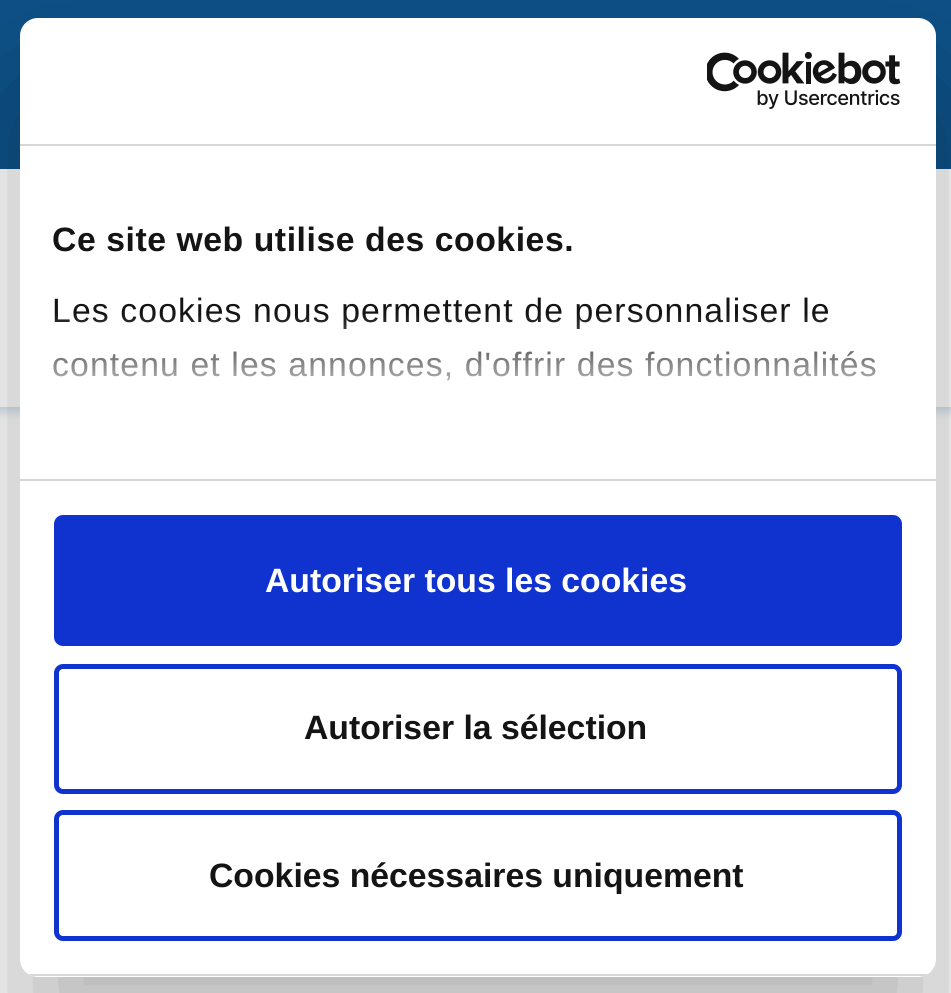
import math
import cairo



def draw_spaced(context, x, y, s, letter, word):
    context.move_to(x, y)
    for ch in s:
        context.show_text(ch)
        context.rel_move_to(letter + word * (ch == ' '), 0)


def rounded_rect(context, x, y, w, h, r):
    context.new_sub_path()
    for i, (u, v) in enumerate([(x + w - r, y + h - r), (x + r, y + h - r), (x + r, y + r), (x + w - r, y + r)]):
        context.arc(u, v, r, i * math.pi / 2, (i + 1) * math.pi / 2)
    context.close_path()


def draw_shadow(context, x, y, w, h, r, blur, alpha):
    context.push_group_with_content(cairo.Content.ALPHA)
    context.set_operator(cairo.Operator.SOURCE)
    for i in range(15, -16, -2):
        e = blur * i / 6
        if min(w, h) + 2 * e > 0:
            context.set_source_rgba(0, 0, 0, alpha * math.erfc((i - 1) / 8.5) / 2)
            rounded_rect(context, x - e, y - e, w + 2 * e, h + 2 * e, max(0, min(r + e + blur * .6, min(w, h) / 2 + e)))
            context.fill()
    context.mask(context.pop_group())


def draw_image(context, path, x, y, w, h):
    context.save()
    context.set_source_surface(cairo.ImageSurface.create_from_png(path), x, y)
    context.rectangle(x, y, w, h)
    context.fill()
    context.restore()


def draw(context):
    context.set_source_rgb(1, 1, 1)
    context.paint()
    context.set_source_rgb(14 / 255, 82 / 255, 137 / 255)
    context.rectangle(0, 0, 951, 169)
    context.fill()
    context.save()
    context.set_fill_rule(cairo.FillRule.EVEN_ODD)
    context.new_path()
    context.move_to(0, 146)
    context.line_to(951, 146)
    context.line_to(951, 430)
    context.line_to(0, 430)
    context.close_path()
    context.move_to(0, 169)
    context.line_to(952, 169)
    context.line_to(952, 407)
    context.line_to(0, 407)
    context.close_path()
    context.clip()
    context.set_source_rgb(14 / 255, 82 / 255, 137 / 255)
    draw_shadow(context, -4, 164, 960, 248, 0, 5.5, 0.2)
    context.restore()
    context.set_source_rgb(0, 0, 0)
    draw_shadow(context, 20, 90, 916, 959, 18, 76.5, 0.3)
    context.set_source_rgb(1, 1, 1)
    rounded_rect(context, 20, 18, 916, 959, 18)
    context.fill()
    context.set_source_rgb(214 / 255, 214 / 255, 214 / 255)
    context.rectangle(20, 144, 916, 2)
    context.fill()
    draw_image(context, "images/1.png", 707, 52, 194, 57)
    context.rectangle(20, 479, 916, 2)
    context.fill()
    context.save()
    rounded_rect(context, 20, 18, 916, 959, 18)
    context.clip()
    context.rectangle(20, 974, 916, 2)
    context.fill()
    context.restore()
    context.set_source_rgb(16 / 255, 50 / 255, 207 / 255)
    rounded_rect(context, 56.5, 517.5, 843, 126, 6.5)
    context.fill_preserve()
    context.set_line_width(5)
    context.stroke()
    rounded_rect(context, 56.5, 666.5, 843, 125, 6.5)
    context.stroke()
    rounded_rect(context, 56.5, 812.5, 843, 126, 6.5)
    context.stroke()
    context.select_font_face("Liberation Sans", cairo.FontSlant.NORMAL, cairo.FontWeight.BOLD)
    context.set_font_size(33.75)
    context.set_source_rgb(20 / 255, 20 / 255, 20 / 255)
    draw_spaced(context, 52, 251, "Ce site web utilise des cookies.", 0.55, 0)
    context.select_font_face("Liberation Sans")
    draw_spaced(context, 52, 322, "Les cookies nous permettent de personnaliser le", 1.12, 0)
    draw_spaced(context, 52, 376, "contenu et les annonces, d'offrir des fonctionnalités", 1.12, 0)
    gradient = cairo.LinearGradient(462, 479, 462, 313)
    gradient.add_color_stop_rgba(0, 1, 1, 1, 1)
    gradient.add_color_stop_rgba(0.5, 1, 1, 1, 0.8)
    gradient.add_color_stop_rgba(1, 1, 1, 1, 0)
    context.set_source(gradient)
    context.rectangle(53, 315, 823, 66)
    context.fill()
    context.select_font_face("Liberation Sans", cairo.FontSlant.NORMAL, cairo.FontWeight.BOLD)
    context.set_source_rgb(1, 1, 1)
    context.move_to(265, 592)
    context.show_text("Autoriser tous les cookies")
    context.set_source_rgb(20 / 255, 20 / 255, 20 / 255)
    context.move_to(304, 739)
    context.show_text("Autoriser la sélection")
    context.move_to(209, 887)
    context.show_text("Cookies nécessaires uniquement")


surface = cairo.ImageSurface(cairo.Format.RGB24, 951, 993)
context = cairo.Context(surface)
options = cairo.FontOptions()
options.set_hint_metrics(cairo.HintMetrics.OFF)
options.set_hint_style(cairo.HintStyle.NONE)
context.set_font_options(options)
context.set_miter_limit(4)
draw(context)
surface.write_to_png("out.png")
